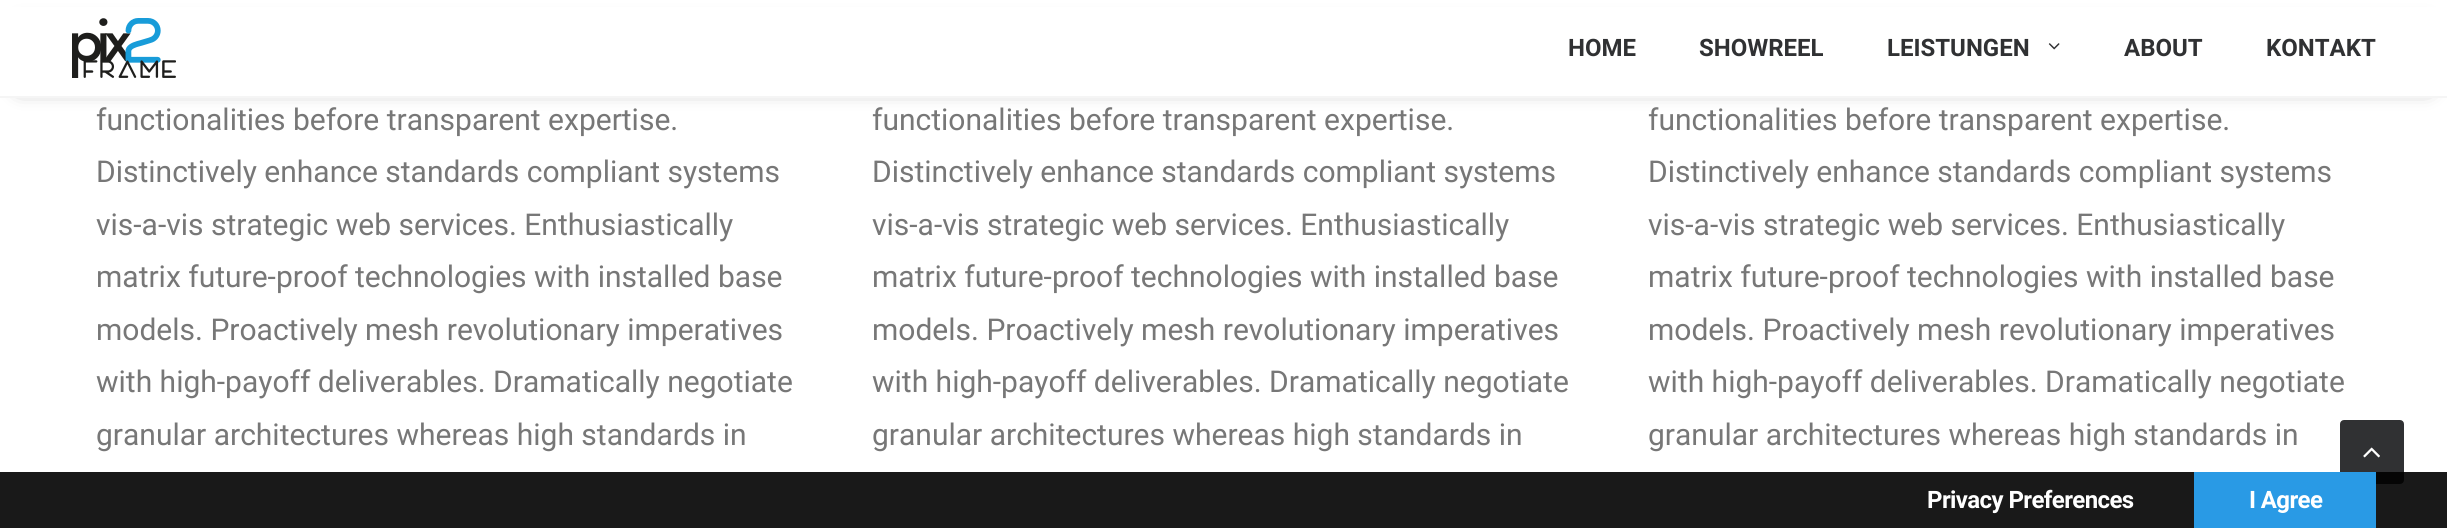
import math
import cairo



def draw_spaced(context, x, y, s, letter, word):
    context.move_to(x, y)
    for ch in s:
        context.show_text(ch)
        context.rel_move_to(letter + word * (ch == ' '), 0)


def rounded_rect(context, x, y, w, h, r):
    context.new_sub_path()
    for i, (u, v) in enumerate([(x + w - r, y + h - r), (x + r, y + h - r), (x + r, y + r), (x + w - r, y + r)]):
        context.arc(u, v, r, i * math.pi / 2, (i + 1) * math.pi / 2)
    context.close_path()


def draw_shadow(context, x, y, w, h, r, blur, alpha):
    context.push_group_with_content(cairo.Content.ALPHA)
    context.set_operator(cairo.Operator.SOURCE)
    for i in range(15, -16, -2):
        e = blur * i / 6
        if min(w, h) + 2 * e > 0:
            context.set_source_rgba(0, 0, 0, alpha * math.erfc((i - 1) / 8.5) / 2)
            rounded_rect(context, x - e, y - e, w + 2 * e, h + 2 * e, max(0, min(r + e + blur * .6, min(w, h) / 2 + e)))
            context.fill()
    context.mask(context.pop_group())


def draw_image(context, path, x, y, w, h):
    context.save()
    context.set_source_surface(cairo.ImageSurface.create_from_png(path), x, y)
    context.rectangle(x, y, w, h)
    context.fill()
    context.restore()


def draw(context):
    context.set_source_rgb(1, 1, 1)
    context.paint()
    context.set_source_rgb(0, 0, 0)
    draw_shadow(context, 20, 28, 2408, 58, 0, 10, 0.6)
    context.set_source_rgb(1, 1, 1)
    context.rectangle(0, 7, 2447, 89)
    context.fill()
    context.set_source_rgb(245 / 255, 245 / 255, 245 / 255)
    context.rectangle(0, 96, 2447, 2)
    context.fill()
    draw_image(context, "images/1.png", 72, 18, 104, 60)
    draw_image(context, "images/2.png", 2048, 43, 12, 7)
    context.set_source_rgb(48 / 255, 49 / 255, 51 / 255)
    rounded_rect(context, 2341, 421, 62, 62, 3)
    context.fill_preserve()
    context.stroke()
    draw_image(context, "images/3.png", 2363, 447, 17, 11)
    context.set_source_rgba(0, 0, 0, 0.9)
    context.rectangle(0, 472, 2447, 56)
    context.fill()
    context.set_source_rgb(41 / 255, 154 / 255, 229 / 255)
    context.rectangle(2194, 472, 182, 56)
    context.fill()
    context.select_font_face("Roboto", cairo.FontSlant.NORMAL, cairo.FontWeight.BOLD)
    context.set_font_size(24)
    context.set_source_rgb(48 / 255, 49 / 255, 51 / 255)
    context.move_to(1568, 56)
    context.show_text("HOME")
    context.move_to(1699, 56)
    context.show_text("SHOWREEL")
    context.move_to(1887, 56)
    context.show_text("LEISTUNGEN")
    context.move_to(2124, 56)
    context.show_text("ABOUT")
    context.move_to(2266, 56)
    context.show_text("KONTAKT")
    context.select_font_face("Roboto")
    context.set_font_size(30)
    context.set_source_rgb(119 / 255, 119 / 255, 119 / 255)
    context.move_to(96, 130)
    context.show_text("functionalities before transparent expertise.")
    context.move_to(96, 182)
    context.show_text("Distinctively enhance standards compliant systems")
    context.move_to(96, 235)
    context.show_text("vis-a-vis strategic web services. Enthusiastically")
    context.move_to(96, 287)
    context.show_text("matrix future-proof technologies with installed base")
    context.move_to(96, 340)
    context.show_text("models. Proactively mesh revolutionary imperatives")
    context.move_to(96, 392)
    context.show_text("with high-payoff deliverables. Dramatically negotiate")
    context.move_to(96, 445)
    context.show_text("granular architectures whereas high standards in")
    context.move_to(872, 130)
    context.show_text("functionalities before transparent expertise.")
    context.move_to(872, 182)
    context.show_text("Distinctively enhance standards compliant systems")
    context.move_to(872, 235)
    context.show_text("vis-a-vis strategic web services. Enthusiastically")
    context.move_to(872, 287)
    context.show_text("matrix future-proof technologies with installed base")
    context.move_to(872, 340)
    context.show_text("models. Proactively mesh revolutionary imperatives")
    context.move_to(872, 392)
    context.show_text("with high-payoff deliverables. Dramatically negotiate")
    context.move_to(872, 445)
    context.show_text("granular architectures whereas high standards in")
    context.move_to(1648, 130)
    context.show_text("functionalities before transparent expertise.")
    context.move_to(1648, 182)
    context.show_text("Distinctively enhance standards compliant systems")
    context.move_to(1648, 235)
    context.show_text("vis-a-vis strategic web services. Enthusiastically")
    context.move_to(1648, 287)
    context.show_text("matrix future-proof technologies with installed base")
    context.move_to(1648, 340)
    context.show_text("models. Proactively mesh revolutionary imperatives")
    context.move_to(1648, 392)
    context.show_text("with high-payoff deliverables. Dramatically negotiate")
    context.move_to(1648, 445)
    context.show_text("granular architectures whereas high standards in")
    context.select_font_face("Roboto", cairo.FontSlant.NORMAL, cairo.FontWeight.BOLD)
    context.set_font_size(24)
    context.set_source_rgb(1, 1, 1)
    draw_spaced(context, 1927, 508, "Privacy Preferences", -0.6, 0)
    draw_spaced(context, 2249, 508, "I Agree", -0.6, 0)


surface = cairo.ImageSurface(cairo.Format.RGB24, 2447, 528)
context = cairo.Context(surface)
options = cairo.FontOptions()
options.set_hint_metrics(cairo.HintMetrics.OFF)
options.set_hint_style(cairo.HintStyle.NONE)
context.set_font_options(options)
context.set_miter_limit(4)
draw(context)
surface.write_to_png("out.png")
